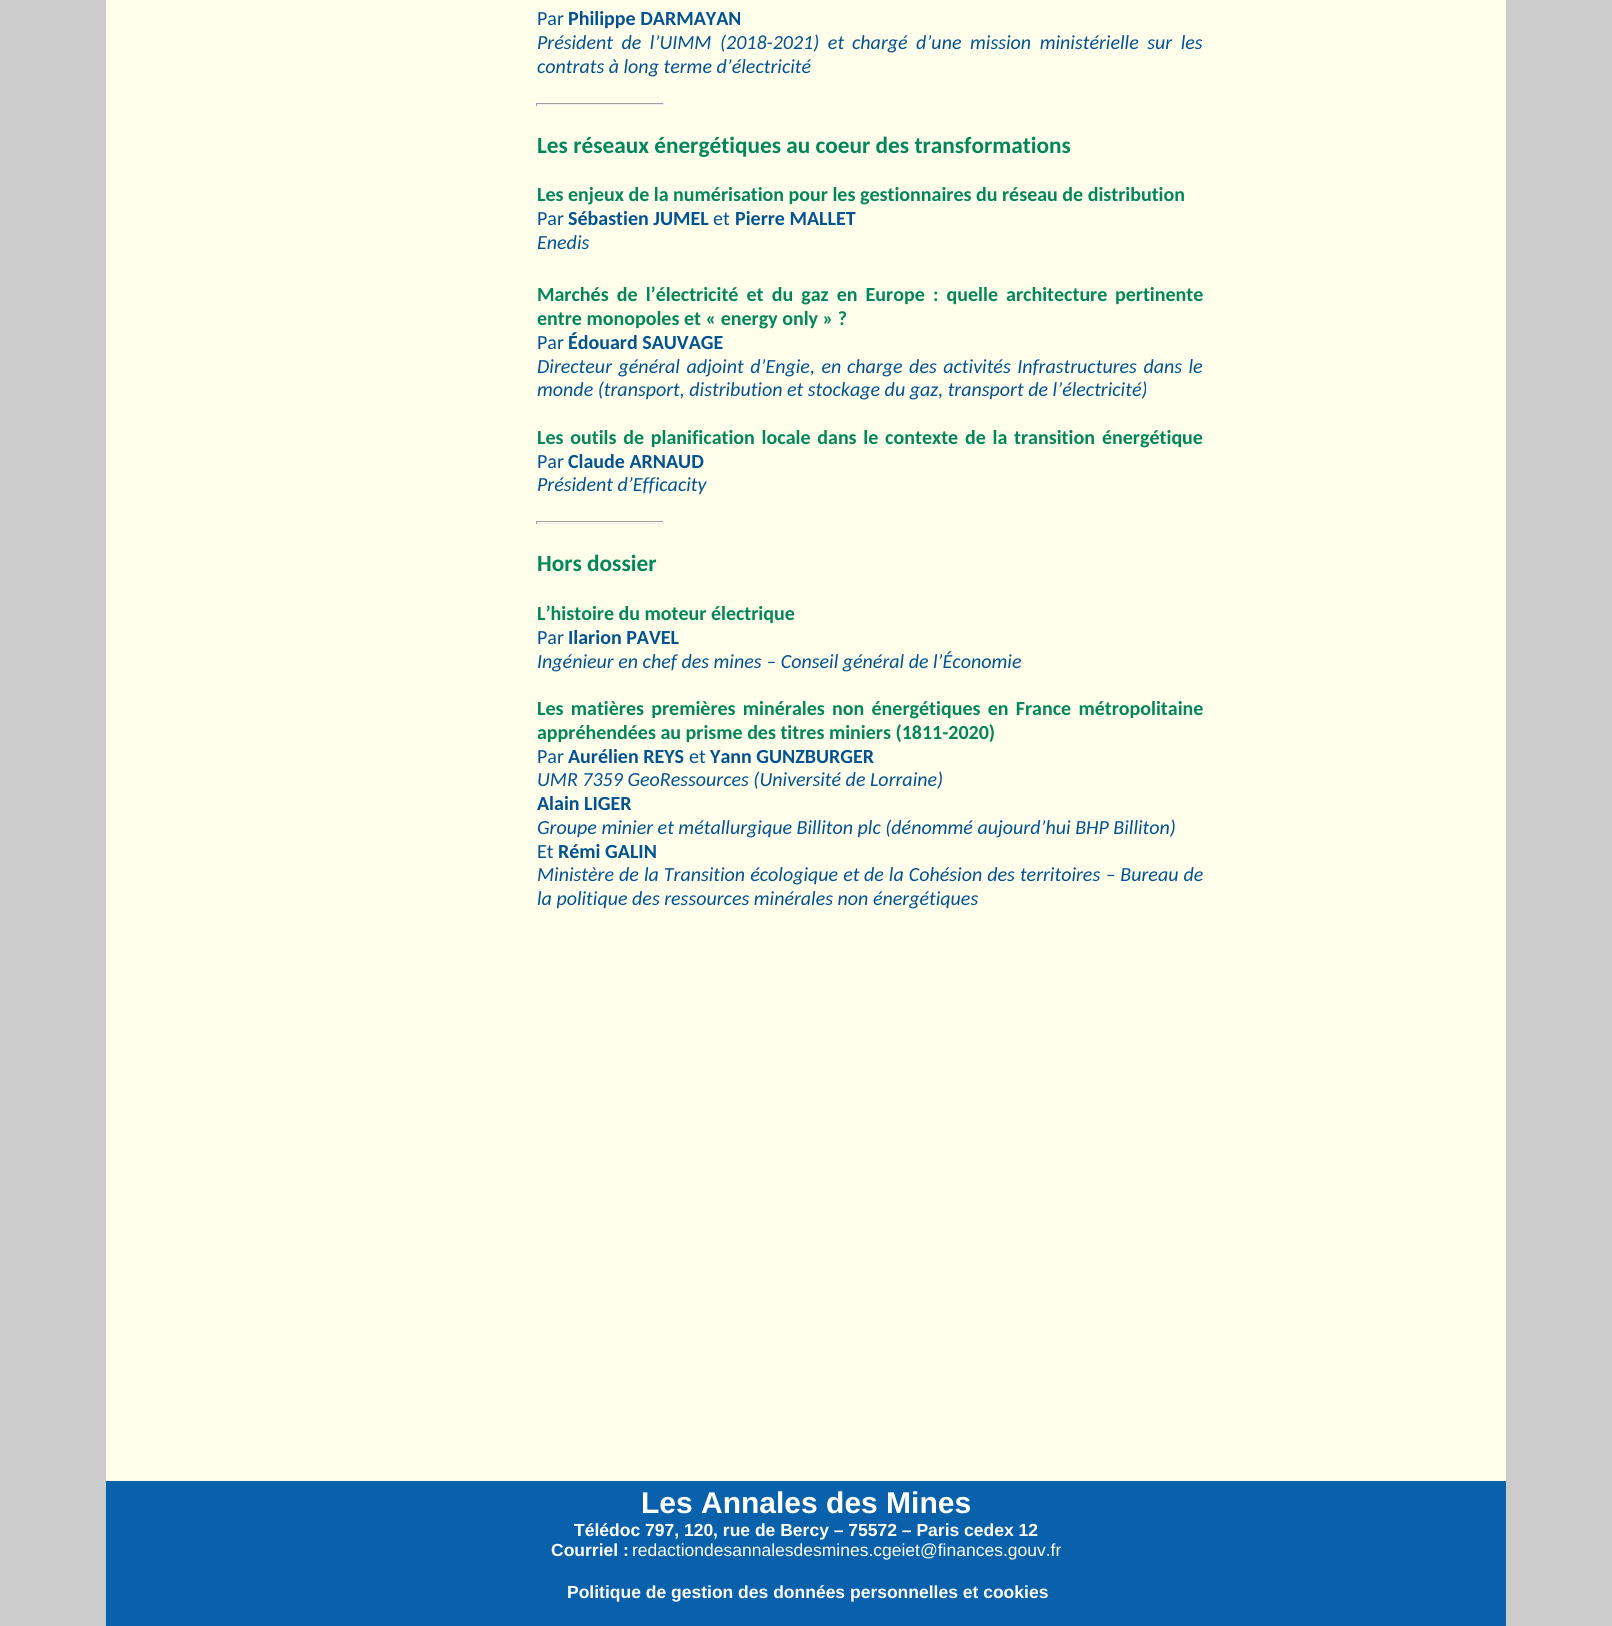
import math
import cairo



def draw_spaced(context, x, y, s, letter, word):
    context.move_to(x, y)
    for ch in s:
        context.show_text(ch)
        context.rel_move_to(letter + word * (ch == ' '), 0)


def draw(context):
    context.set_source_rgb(204 / 255, 204 / 255, 204 / 255)
    context.paint()
    context.set_source_rgb(1, 1, 236 / 255)
    context.rectangle(106, 0, 1400, 1481)
    context.fill()
    context.set_source_rgb(159 / 255, 159 / 255, 159 / 255)
    context.rectangle(536, 103, 128, 1)
    context.fill()
    context.set_source_rgb(238 / 255, 238 / 255, 238 / 255)
    context.rectangle(663, 103, 1, 3)
    context.fill()
    context.rectangle(536, 104, 128, 1)
    context.fill()
    context.set_source_rgb(159 / 255, 159 / 255, 159 / 255)
    context.rectangle(536, 103, 1, 3)
    context.fill()
    context.rectangle(536, 521, 128, 1)
    context.fill()
    context.set_source_rgb(238 / 255, 238 / 255, 238 / 255)
    context.rectangle(663, 521, 1, 3)
    context.fill()
    context.rectangle(536, 523, 128, 1)
    context.fill()
    context.set_source_rgb(159 / 255, 159 / 255, 159 / 255)
    context.rectangle(536, 521, 1, 3)
    context.fill()
    context.set_source_rgb(8 / 255, 97 / 255, 170 / 255)
    context.rectangle(106, 1481, 1400, 145)
    context.fill()
    context.select_font_face("Carlito")
    context.set_font_size(20)
    context.set_source_rgb(0, 82 / 255, 145 / 255)
    context.move_to(537, 25)
    context.show_text("Par")
    context.select_font_face("Carlito", cairo.FontSlant.NORMAL, cairo.FontWeight.BOLD)
    context.move_to(568, 25)
    context.show_text("Philippe DARMAYAN")
    context.select_font_face("Carlito", cairo.FontSlant.ITALIC)
    draw_spaced(context, 537, 49, "Président de l’UIMM (2018-2021) et", 0, 4)
    draw_spaced(context, 852, 49, "chargé d’une mission ministérielle sur les", 0, 4)
    context.move_to(537, 73)
    context.show_text("contrats à long terme d’électricité")
    context.select_font_face("Carlito", cairo.FontSlant.NORMAL, cairo.FontWeight.BOLD)
    context.set_font_size(23.3)
    context.set_source_rgb(1 / 255, 134 / 255, 89 / 255)
    context.move_to(537, 153)
    context.show_text("Les réseaux énergétiques au coeur des transformations")
    context.set_font_size(20)
    context.move_to(537, 201)
    context.show_text("Les enjeux de la numérisation pour les gestionnaires du réseau de distribution")
    context.select_font_face("Carlito")
    context.set_source_rgb(0, 82 / 255, 145 / 255)
    context.move_to(537, 225)
    context.show_text("Par")
    context.select_font_face("Carlito", cairo.FontSlant.NORMAL, cairo.FontWeight.BOLD)
    context.move_to(568, 225)
    context.show_text("Sébastien JUMEL")
    context.select_font_face("Carlito")
    context.move_to(713, 225)
    context.show_text("et")
    context.select_font_face("Carlito", cairo.FontSlant.NORMAL, cairo.FontWeight.BOLD)
    context.move_to(735, 225)
    context.show_text("Pierre MALLET")
    context.select_font_face("Carlito", cairo.FontSlant.ITALIC)
    context.move_to(537, 249)
    context.show_text("Enedis")
    context.select_font_face("Carlito", cairo.FontSlant.NORMAL, cairo.FontWeight.BOLD)
    context.set_source_rgb(1 / 255, 134 / 255, 89 / 255)
    draw_spaced(context, 537, 301, "Marchés de l’électricité et du gaz en Europe : quelle architecture", 0, 3.6)
    context.move_to(1115, 301)
    context.show_text("pertinente")
    context.move_to(537, 325)
    context.show_text("entre monopoles et « energy only » ?")
    context.select_font_face("Carlito")
    context.set_source_rgb(0, 82 / 255, 145 / 255)
    context.move_to(537, 349)
    context.show_text("Par")
    context.select_font_face("Carlito", cairo.FontSlant.NORMAL, cairo.FontWeight.BOLD)
    context.move_to(568, 349)
    context.show_text("Édouard SAUVAGE")
    context.select_font_face("Carlito", cairo.FontSlant.ITALIC)
    draw_spaced(context, 537, 373, "Directeur général adjoint d’Engie, en", 0, 2)
    draw_spaced(context, 847, 373, "charge des activités Infrastructures dans le", 0, 2)
    context.move_to(537, 396)
    context.show_text("monde (transport, distribution et stockage du gaz, transport de l’électricité)")
    context.select_font_face("Carlito", cairo.FontSlant.NORMAL, cairo.FontWeight.BOLD)
    context.set_source_rgb(1 / 255, 134 / 255, 89 / 255)
    draw_spaced(context, 537, 444, "Les outils de planification locale dans le contexte de la transition", 0, 2.25)
    context.move_to(1102, 444)
    context.show_text("énergétique")
    context.select_font_face("Carlito")
    context.set_source_rgb(0, 82 / 255, 145 / 255)
    context.move_to(537, 468)
    context.show_text("Par")
    context.select_font_face("Carlito", cairo.FontSlant.NORMAL, cairo.FontWeight.BOLD)
    context.move_to(568, 468)
    context.show_text("Claude ARNAUD")
    context.select_font_face("Carlito", cairo.FontSlant.ITALIC)
    context.move_to(537, 491)
    context.show_text("Président d’Efficacity")
    context.select_font_face("Carlito", cairo.FontSlant.NORMAL, cairo.FontWeight.BOLD)
    context.set_font_size(23.3)
    context.set_source_rgb(1 / 255, 134 / 255, 89 / 255)
    context.move_to(537, 571)
    context.show_text("Hors dossier")
    context.set_font_size(20)
    context.move_to(537, 620)
    context.show_text("L’histoire du moteur électrique")
    context.select_font_face("Carlito")
    context.set_source_rgb(0, 82 / 255, 145 / 255)
    context.move_to(537, 644)
    context.show_text("Par")
    context.select_font_face("Carlito", cairo.FontSlant.NORMAL, cairo.FontWeight.BOLD)
    context.move_to(568, 644)
    context.show_text("Ilarion PAVEL")
    context.select_font_face("Carlito", cairo.FontSlant.ITALIC)
    context.move_to(537, 668)
    context.show_text("Ingénieur en chef des mines ‒ Conseil général de l’Économie")
    context.select_font_face("Carlito", cairo.FontSlant.NORMAL, cairo.FontWeight.BOLD)
    context.set_source_rgb(1 / 255, 134 / 255, 89 / 255)
    draw_spaced(context, 537, 715, "Les matières premières minérales non énergétiques en France métropolitaine", 0, 2.75)
    context.move_to(537, 739)
    context.show_text("appréhendées au prisme des titres miniers (1811-2020)")
    context.select_font_face("Carlito")
    context.set_source_rgb(0, 82 / 255, 145 / 255)
    context.move_to(537, 763)
    context.show_text("Par")
    context.select_font_face("Carlito", cairo.FontSlant.NORMAL, cairo.FontWeight.BOLD)
    context.move_to(568, 763)
    context.show_text("Aurélien REYS")
    context.select_font_face("Carlito")
    context.move_to(689, 763)
    context.show_text("et")
    context.select_font_face("Carlito", cairo.FontSlant.NORMAL, cairo.FontWeight.BOLD)
    context.move_to(710, 763)
    context.show_text("Yann GUNZBURGER")
    context.select_font_face("Carlito", cairo.FontSlant.ITALIC)
    context.move_to(537, 786)
    context.show_text("UMR 7359 GeoRessources (Université de Lorraine)")
    context.select_font_face("Carlito", cairo.FontSlant.NORMAL, cairo.FontWeight.BOLD)
    context.move_to(537, 810)
    context.show_text("Alain LIGER")
    context.select_font_face("Carlito", cairo.FontSlant.ITALIC)
    context.move_to(537, 834)
    context.show_text("Groupe minier et métallurgique Billiton plc (dénommé aujourd’hui BHP Billiton)")
    context.select_font_face("Carlito")
    context.move_to(537, 858)
    context.show_text("Et")
    context.select_font_face("Carlito", cairo.FontSlant.NORMAL, cairo.FontWeight.BOLD)
    context.move_to(558, 858)
    context.show_text("Rémi GALIN")
    context.select_font_face("Carlito", cairo.FontSlant.ITALIC)
    draw_spaced(context, 537, 881, "Ministère de la Transition écologique et", 0, 0.5)
    draw_spaced(context, 864, 881, "de la Cohésion des territoires ‒ Bureau de", 0, 0.5)
    context.move_to(537, 905)
    context.show_text("la politique des ressources minérales non énergétiques")
    context.select_font_face("Liberation Sans", cairo.FontSlant.NORMAL, cairo.FontWeight.BOLD)
    context.set_font_size(30)
    context.set_source_rgb(1, 1, 1)
    context.move_to(641, 1513)
    context.show_text("Les Annales des Mines")
    context.set_font_size(17.5)
    context.move_to(574, 1536)
    context.show_text("Télédoc 797, 120, rue de Bercy – 75572 – Paris cedex 12")
    context.move_to(551, 1556)
    context.show_text("Courriel :")
    context.select_font_face("Liberation Sans")
    context.move_to(632, 1556)
    context.show_text("redactiondesannalesdesmines.cgeiet@finances.gouv.fr")
    context.select_font_face("Liberation Sans", cairo.FontSlant.NORMAL, cairo.FontWeight.BOLD)
    context.move_to(567, 1598)
    context.show_text("Politique de gestion des données personnelles et cookies")


surface = cairo.ImageSurface(cairo.Format.RGB24, 1612, 1626)
context = cairo.Context(surface)
options = cairo.FontOptions()
options.set_hint_metrics(cairo.HintMetrics.OFF)
options.set_hint_style(cairo.HintStyle.NONE)
context.set_font_options(options)
context.set_miter_limit(4)
draw(context)
surface.write_to_png("out.png")
